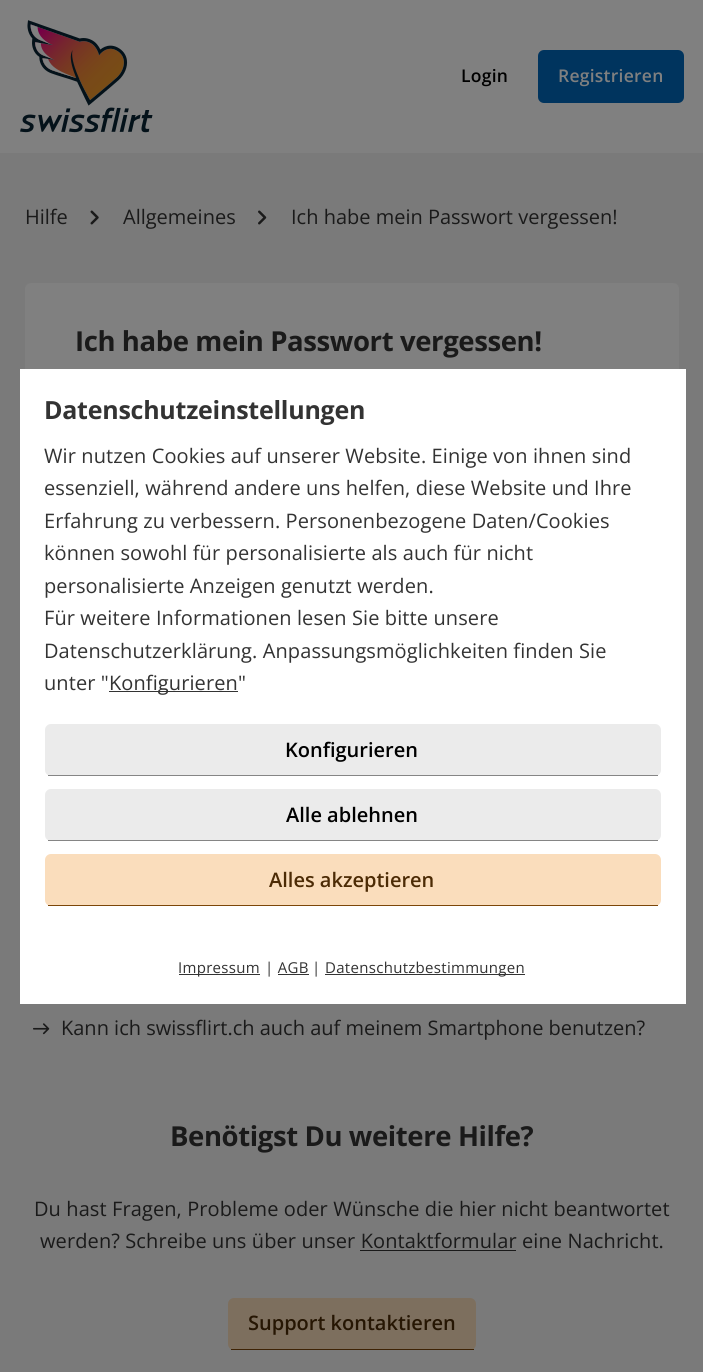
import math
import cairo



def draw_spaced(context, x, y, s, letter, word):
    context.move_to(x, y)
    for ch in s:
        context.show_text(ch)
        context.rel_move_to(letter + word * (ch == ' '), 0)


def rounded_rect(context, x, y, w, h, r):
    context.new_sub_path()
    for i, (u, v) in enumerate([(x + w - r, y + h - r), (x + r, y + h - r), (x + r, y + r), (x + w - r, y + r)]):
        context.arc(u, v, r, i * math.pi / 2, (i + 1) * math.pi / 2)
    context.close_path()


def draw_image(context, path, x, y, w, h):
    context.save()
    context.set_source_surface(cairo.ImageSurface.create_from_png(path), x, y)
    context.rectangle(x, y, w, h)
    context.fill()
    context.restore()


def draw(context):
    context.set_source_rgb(122 / 255, 122 / 255, 122 / 255)
    context.paint()
    context.set_source_rgb(128 / 255, 128 / 255, 128 / 255)
    context.rectangle(0, 0, 703, 153)
    context.fill()
    draw_image(context, "images/1.png", 20, 20, 133, 113)
    context.set_source_rgb(0, 52 / 255, 94 / 255)
    rounded_rect(context, 538, 50, 146, 53, 6)
    context.fill()
    draw_image(context, "images/2.png", 90, 210, 9, 15)
    draw_image(context, "images/3.png", 258, 210, 9, 15)
    context.set_source_rgb(128 / 255, 128 / 255, 128 / 255)
    rounded_rect(context, 25, 283, 654, 465, 6)
    context.fill()
    draw_image(context, "images/4.png", 33, 1023, 17, 12)
    context.set_source_rgb(26 / 255, 26 / 255, 26 / 255)
    context.rectangle(360, 1250, 156, 1)
    context.fill()
    context.set_source_rgb(125 / 255, 111 / 255, 94 / 255)
    rounded_rect(context, 228, 1298, 248, 52, 6)
    context.fill()
    context.set_source_rgb(62 / 255, 35 / 255, 5 / 255)
    context.rectangle(231, 1349, 243, 1)
    context.fill()
    context.set_source_rgb(1, 1, 1)
    context.rectangle(20, 369, 666, 635)
    context.fill()
    context.set_source_rgb(51 / 255, 51 / 255, 51 / 255)
    context.rectangle(109, 691, 129, 1)
    context.fill()
    context.set_source_rgb(235 / 255, 235 / 255, 235 / 255)
    rounded_rect(context, 45, 724, 616, 52, 6)
    context.fill()
    context.set_source_rgb(133 / 255, 133 / 255, 133 / 255)
    context.rectangle(48, 775, 610, 1)
    context.fill()
    context.set_source_rgb(235 / 255, 235 / 255, 235 / 255)
    rounded_rect(context, 45, 789, 616, 52, 6)
    context.fill()
    context.set_source_rgb(133 / 255, 133 / 255, 133 / 255)
    context.rectangle(48, 840, 610, 1)
    context.fill()
    context.set_source_rgb(250 / 255, 221 / 255, 188 / 255)
    rounded_rect(context, 45, 854, 616, 52, 6)
    context.fill()
    context.set_source_rgb(124 / 255, 70 / 255, 9 / 255)
    context.rectangle(48, 905, 610, 1)
    context.fill()
    context.set_source_rgb(51 / 255, 51 / 255, 51 / 255)
    context.rectangle(179, 974, 81, 1)
    context.fill()
    context.rectangle(325, 974, 200, 1)
    context.fill()
    context.rectangle(278, 974, 31, 1)
    context.fill()
    context.select_font_face("Open Sans SemiBold")
    context.set_font_size(17.5)
    context.set_source_rgb(0, 0, 0)
    draw_spaced(context, 461, 82, "Login", 0.25, 0)
    context.set_source_rgb(128 / 255, 128 / 255, 128 / 255)
    draw_spaced(context, 558, 82, "Registrieren", 0.25, 0)
    context.select_font_face("Open Sans")
    context.set_font_size(20)
    context.set_source_rgb(26 / 255, 26 / 255, 26 / 255)
    context.move_to(25, 224)
    context.show_text("Hilfe")
    context.move_to(123, 224)
    context.show_text("Allgemeines")
    context.move_to(291, 224)
    context.show_text("Ich habe mein Passwort vergessen!")
    context.select_font_face("Open Sans", cairo.FontSlant.NORMAL, cairo.FontWeight.BOLD)
    context.set_font_size(27.5)
    draw_spaced(context, 75, 351, "Ich habe mein Passwort vergessen!", -0.4, 0)
    context.select_font_face("Open Sans")
    context.set_font_size(20)
    context.move_to(61, 1035)
    context.show_text("Kann ich swissflirt.ch auch auf meinem Smartphone benutzen?")
    context.select_font_face("Open Sans", cairo.FontSlant.NORMAL, cairo.FontWeight.BOLD)
    context.set_font_size(27.5)
    draw_spaced(context, 170, 1146, "Benötigst Du weitere Hilfe?", -0.4, 0)
    context.select_font_face("Open Sans")
    context.set_font_size(20)
    draw_spaced(context, 34, 1216, "Du hast Fragen, Probleme oder Wünsche die hier nicht beantwortet", 0.1, 0)
    draw_spaced(context, 40, 1248, "werden? Schreibe uns über unser Kontaktformular", 0.1, 0)
    draw_spaced(context, 522, 1248, "eine Nachricht.", 0.1, 0)
    context.select_font_face("Open Sans SemiBold")
    context.set_source_rgb(38 / 255, 22 / 255, 3 / 255)
    context.move_to(248, 1330)
    context.show_text("Support kontaktieren")
    context.select_font_face("Open Sans", cairo.FontSlant.NORMAL, cairo.FontWeight.BOLD)
    context.set_font_size(25)
    context.set_source_rgb(51 / 255, 51 / 255, 51 / 255)
    draw_spaced(context, 44, 419, "Datenschutzeinstellungen", -0.25, 0)
    context.select_font_face("Open Sans")
    context.set_font_size(20)
    draw_spaced(context, 44, 463, "Wir nutzen Cookies auf unserer Website. Einige von ihnen sind", 0.1, 0)
    draw_spaced(context, 44, 495, "essenziell, während andere uns helfen, diese Website und Ihre", 0.1, 0)
    draw_spaced(context, 44, 528, "Erfahrung zu verbessern. Personenbezogene Daten/Cookies", 0.1, 0)
    draw_spaced(context, 44, 560, "können sowohl für personalisierte als auch für nicht", 0.1, 0)
    draw_spaced(context, 44, 593, "personalisierte Anzeigen genutzt werden.", 0.1, 0)
    draw_spaced(context, 44, 625, "Für weitere Informationen lesen Sie bitte unsere", 0.1, 0)
    draw_spaced(context, 44, 658, "Datenschutzerklärung. Anpassungsmöglichkeiten finden Sie", 0.1, 0)
    draw_spaced(context, 44, 690, "unter \"", 0.1, 0)
    draw_spaced(context, 109, 690, "Konfigurieren", 0.1, 0)
    draw_spaced(context, 238, 690, "\"", 0.1, 0)
    context.select_font_face("Open Sans SemiBold")
    context.set_source_rgb(0, 0, 0)
    context.move_to(285, 757)
    context.show_text("Konfigurieren")
    context.move_to(286, 822)
    context.show_text("Alle ablehnen")
    context.set_source_rgb(76 / 255, 43 / 255, 5 / 255)
    context.move_to(269, 887)
    context.show_text("Alles akzeptieren")
    context.select_font_face("Open Sans")
    context.set_font_size(15)
    context.set_source_rgb(51 / 255, 51 / 255, 51 / 255)
    draw_spaced(context, 178, 973, "Impressum", 0.3, 0)
    draw_spaced(context, 265, 973, "| AGB", 0.3, 0)
    draw_spaced(context, 312, 973, "|", 0.3, 0)
    draw_spaced(context, 325, 973, "Datenschutzbestimmungen", 0.3, 0)


surface = cairo.ImageSurface(cairo.Format.RGB24, 703, 1372)
context = cairo.Context(surface)
options = cairo.FontOptions()
options.set_hint_metrics(cairo.HintMetrics.OFF)
options.set_hint_style(cairo.HintStyle.NONE)
context.set_font_options(options)
context.set_miter_limit(4)
draw(context)
surface.write_to_png("out.png")
